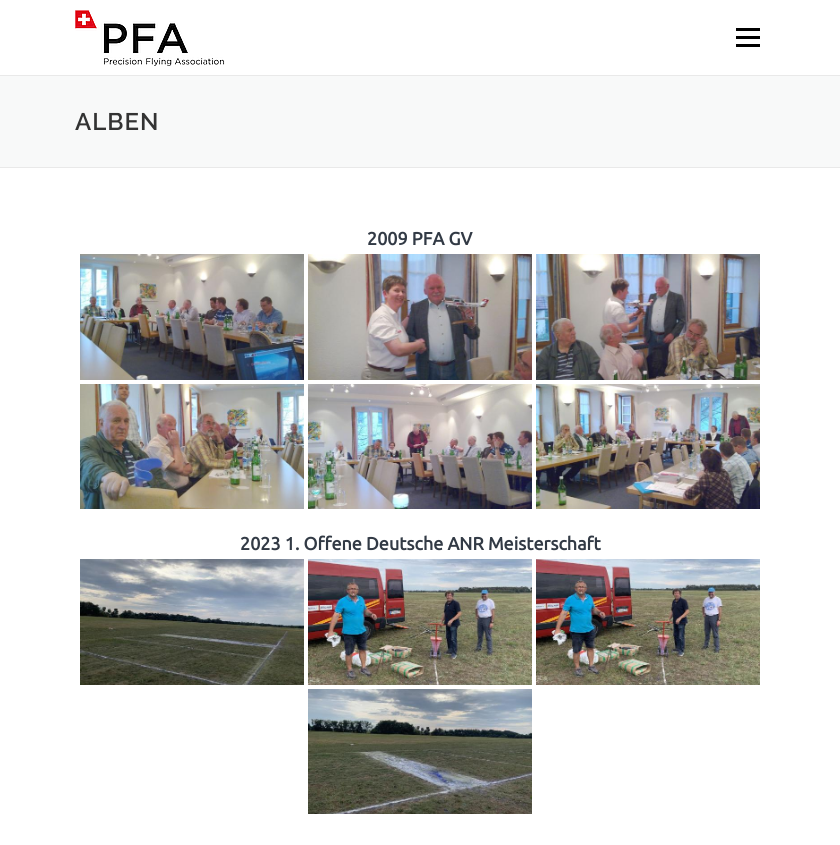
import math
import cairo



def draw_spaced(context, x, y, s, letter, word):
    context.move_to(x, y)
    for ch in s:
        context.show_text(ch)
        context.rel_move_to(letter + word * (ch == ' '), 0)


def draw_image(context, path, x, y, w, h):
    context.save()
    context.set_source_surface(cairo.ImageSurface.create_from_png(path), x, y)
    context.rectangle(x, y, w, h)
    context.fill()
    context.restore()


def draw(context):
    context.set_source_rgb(1, 1, 1)
    context.paint()
    draw_image(context, "images/1.png", 75, 10, 150, 56)
    context.set_source_rgb(0, 0, 0)
    context.rectangle(736, 36, 24, 3)
    context.fill()
    context.rectangle(736, 28, 24, 3)
    context.fill()
    context.rectangle(736, 44, 24, 3)
    context.fill()
    context.set_source_rgb(248 / 255, 249 / 255, 249 / 255)
    context.rectangle(0, 76, 840, 91)
    context.fill()
    context.set_source_rgb(233 / 255, 233 / 255, 233 / 255)
    context.rectangle(0, 75, 840, 1)
    context.fill()
    context.rectangle(0, 167, 840, 1)
    context.fill()
    draw_image(context, "images/2.png", 80, 254, 224, 126)
    draw_image(context, "images/3.png", 308, 254, 224, 126)
    draw_image(context, "images/4.png", 536, 254, 224, 126)
    draw_image(context, "images/5.png", 80, 384, 224, 125)
    draw_image(context, "images/6.png", 308, 384, 224, 125)
    draw_image(context, "images/7.png", 536, 384, 224, 125)
    draw_image(context, "images/8.png", 80, 559, 224, 126)
    draw_image(context, "images/9.png", 308, 559, 224, 126)
    draw_image(context, "images/10.png", 536, 559, 224, 126)
    draw_image(context, "images/11.png", 308, 689, 224, 125)
    context.select_font_face("Raleway SemiBold")
    context.set_font_size(24)
    context.set_source_rgb(51 / 255, 51 / 255, 51 / 255)
    draw_spaced(context, 75, 130, "ALBEN", 1, 0)
    context.select_font_face("Ubuntu", cairo.FontSlant.NORMAL, cairo.FontWeight.BOLD)
    context.set_font_size(18)
    context.set_source_rgb(50 / 255, 58 / 255, 69 / 255)
    context.move_to(367, 245)
    context.show_text("2009 PFA GV")
    context.move_to(240, 550)
    context.show_text("2023 1. Offene Deutsche ANR Meisterschaft")


surface = cairo.ImageSurface(cairo.Format.RGB24, 840, 845)
context = cairo.Context(surface)
options = cairo.FontOptions()
options.set_hint_metrics(cairo.HintMetrics.OFF)
options.set_hint_style(cairo.HintStyle.NONE)
context.set_font_options(options)
context.set_miter_limit(4)
draw(context)
surface.write_to_png("out.png")
